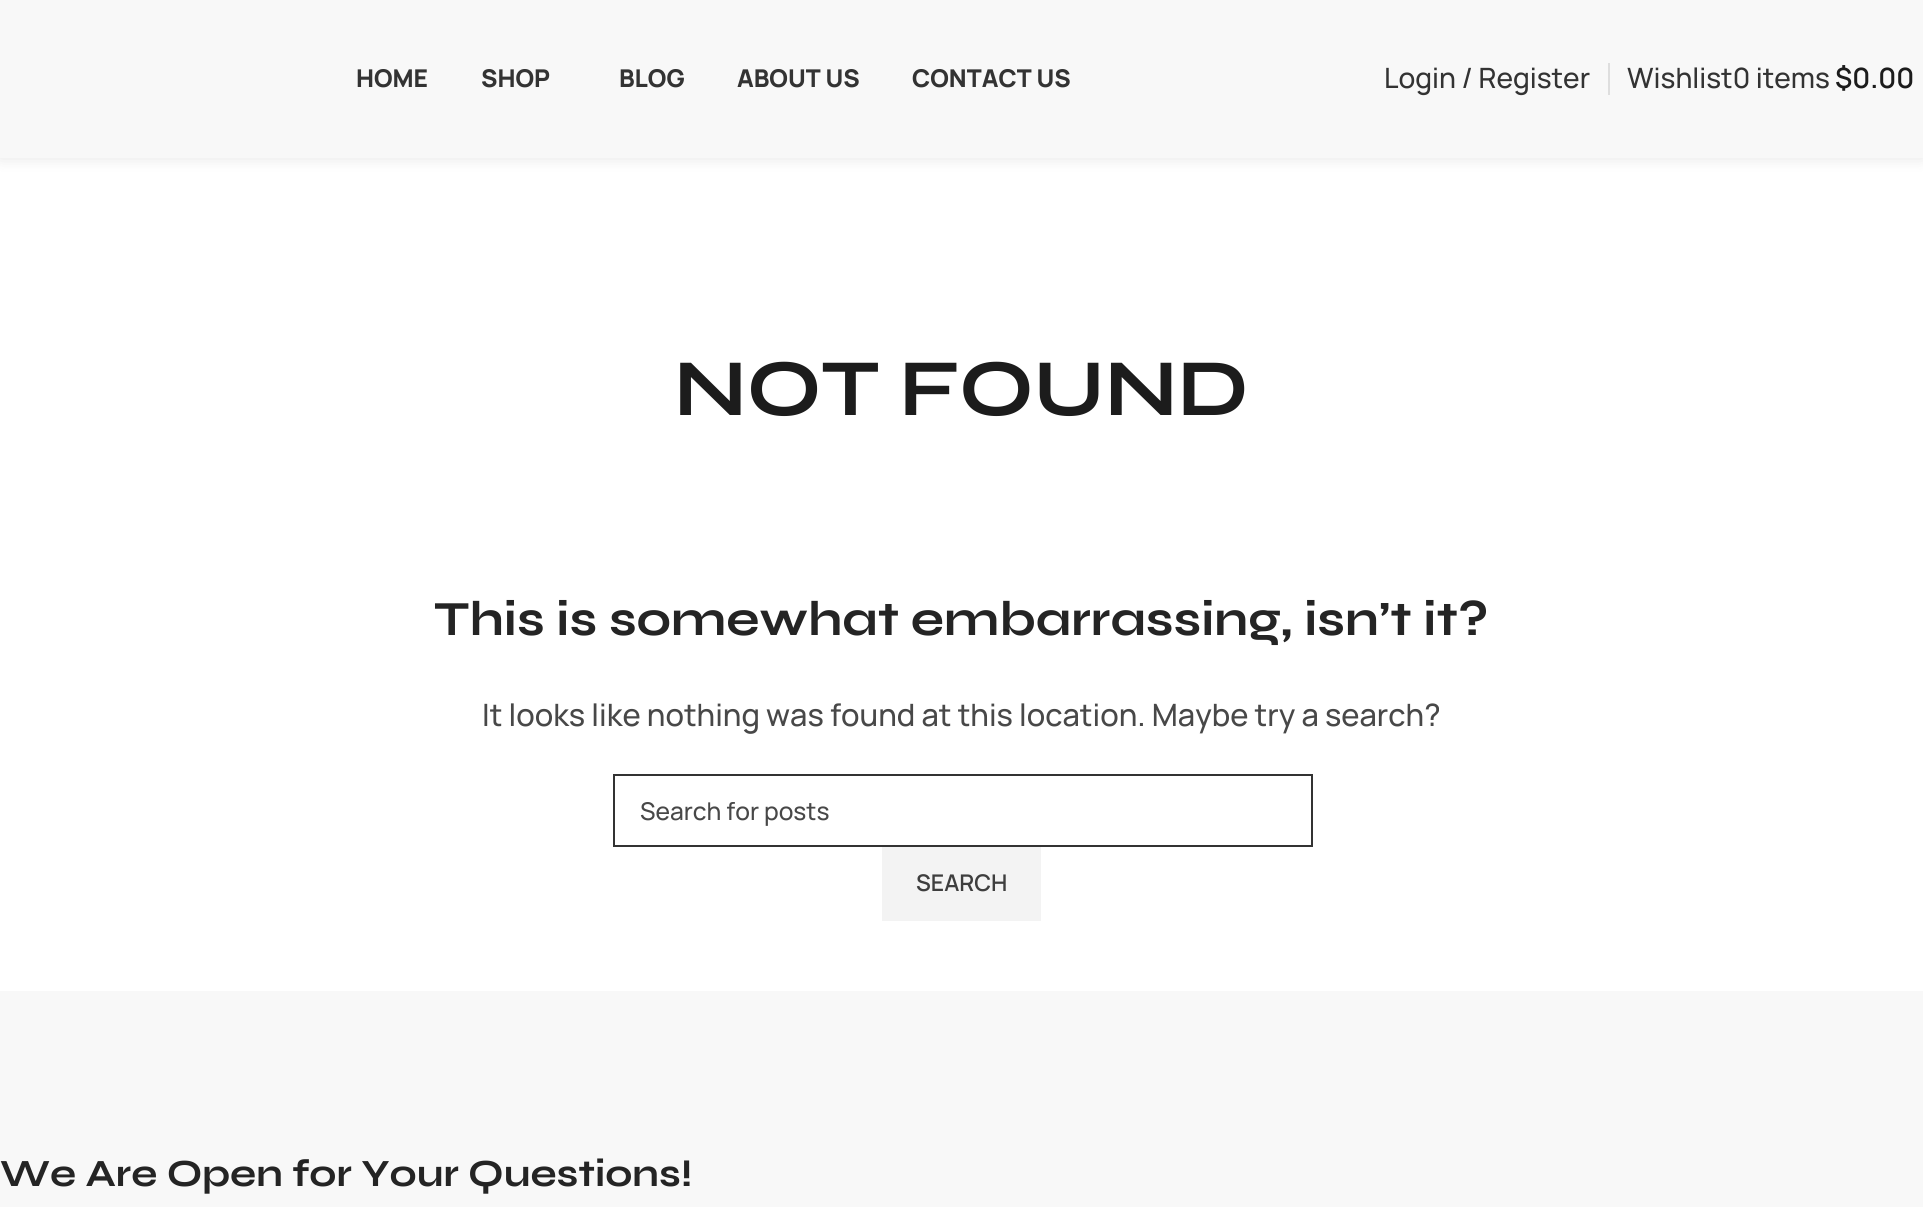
import math
import cairo



def rounded_rect(context, x, y, w, h, r):
    context.new_sub_path()
    for i, (u, v) in enumerate([(x + w - r, y + h - r), (x + r, y + h - r), (x + r, y + r), (x + w - r, y + r)]):
        context.arc(u, v, r, i * math.pi / 2, (i + 1) * math.pi / 2)
    context.close_path()


def draw_shadow(context, x, y, w, h, r, blur, alpha):
    context.push_group_with_content(cairo.Content.ALPHA)
    context.set_operator(cairo.Operator.SOURCE)
    for i in range(15, -16, -2):
        e = blur * i / 6
        if min(w, h) + 2 * e > 0:
            context.set_source_rgba(0, 0, 0, alpha * math.erfc((i - 1) / 8.5) / 2)
            rounded_rect(context, x - e, y - e, w + 2 * e, h + 2 * e, max(0, min(r + e + blur * .6, min(w, h) / 2 + e)))
            context.fill()
    context.mask(context.pop_group())


def draw(context):
    context.set_source_rgb(1, 1, 1)
    context.paint()
    context.set_source_rgb(0, 0, 0)
    draw_shadow(context, 0, 2, 1923, 157, 0, 7, 0.1)
    context.set_source_rgb(248 / 255, 248 / 255, 248 / 255)
    context.rectangle(0, 0, 1923, 158)
    context.fill()
    context.set_source_rgb(222 / 255, 222 / 255, 222 / 255)
    context.rectangle(1608, 63, 2, 32)
    context.fill()
    context.rectangle(614, 775, 698, 71)
    context.set_source_rgb(51 / 255, 51 / 255, 51 / 255)
    context.stroke()
    context.set_source_rgb(243 / 255, 243 / 255, 243 / 255)
    context.rectangle(882, 847, 159, 74)
    context.fill()
    context.set_source_rgb(248 / 255, 248 / 255, 248 / 255)
    context.rectangle(0, 991, 1923, 216)
    context.fill()
    context.select_font_face("Manrope ExtraBold")
    context.set_font_size(24.5)
    context.set_source_rgb(51 / 255, 51 / 255, 51 / 255)
    context.move_to(356, 87)
    context.show_text("HOME")
    context.move_to(481, 87)
    context.show_text("SHOP")
    context.move_to(619, 87)
    context.show_text("BLOG")
    context.move_to(737, 87)
    context.show_text("ABOUT US")
    context.move_to(912, 87)
    context.show_text("CONTACT US")
    context.select_font_face("Manrope Medium")
    context.set_font_size(28)
    context.move_to(1384, 88)
    context.show_text("Login / Register")
    context.move_to(1627, 88)
    context.show_text("Wishlist0 items")
    context.select_font_face("Manrope SemiBold")
    context.set_source_rgb(28 / 255, 28 / 255, 28 / 255)
    context.move_to(1835, 88)
    context.show_text("$0.00")
    context.select_font_face("Syne", cairo.FontSlant.NORMAL, cairo.FontWeight.BOLD)
    context.set_font_size(80.75)
    context.move_to(674, 415)
    context.show_text("NOT FOUND")
    context.set_font_size(49)
    context.set_source_rgb(36 / 255, 36 / 255, 36 / 255)
    context.move_to(434, 635)
    context.show_text("This is somewhat embarrassing, isn’t it?")
    context.select_font_face("Manrope Medium")
    context.set_font_size(30.8)
    context.set_source_rgb(72 / 255, 72 / 255, 72 / 255)
    context.move_to(482, 726)
    context.show_text("It looks like nothing was found at this location. Maybe try a search?")
    context.set_font_size(24.5)
    context.move_to(640, 820)
    context.show_text("Search for posts")
    context.select_font_face("Manrope SemiBold")
    context.set_font_size(23)
    context.set_source_rgb(62 / 255, 62 / 255, 62 / 255)
    context.move_to(916, 891)
    context.show_text("SEARCH")
    context.select_font_face("Syne", cairo.FontSlant.NORMAL, cairo.FontWeight.BOLD)
    context.set_font_size(38.5)
    context.set_source_rgb(36 / 255, 36 / 255, 36 / 255)
    context.move_to(0, 1186)
    context.show_text("We Are Open for Your Questions!")


surface = cairo.ImageSurface(cairo.Format.RGB24, 1923, 1207)
context = cairo.Context(surface)
options = cairo.FontOptions()
options.set_hint_metrics(cairo.HintMetrics.OFF)
options.set_hint_style(cairo.HintStyle.NONE)
context.set_font_options(options)
context.set_miter_limit(4)
draw(context)
surface.write_to_png("out.png")
